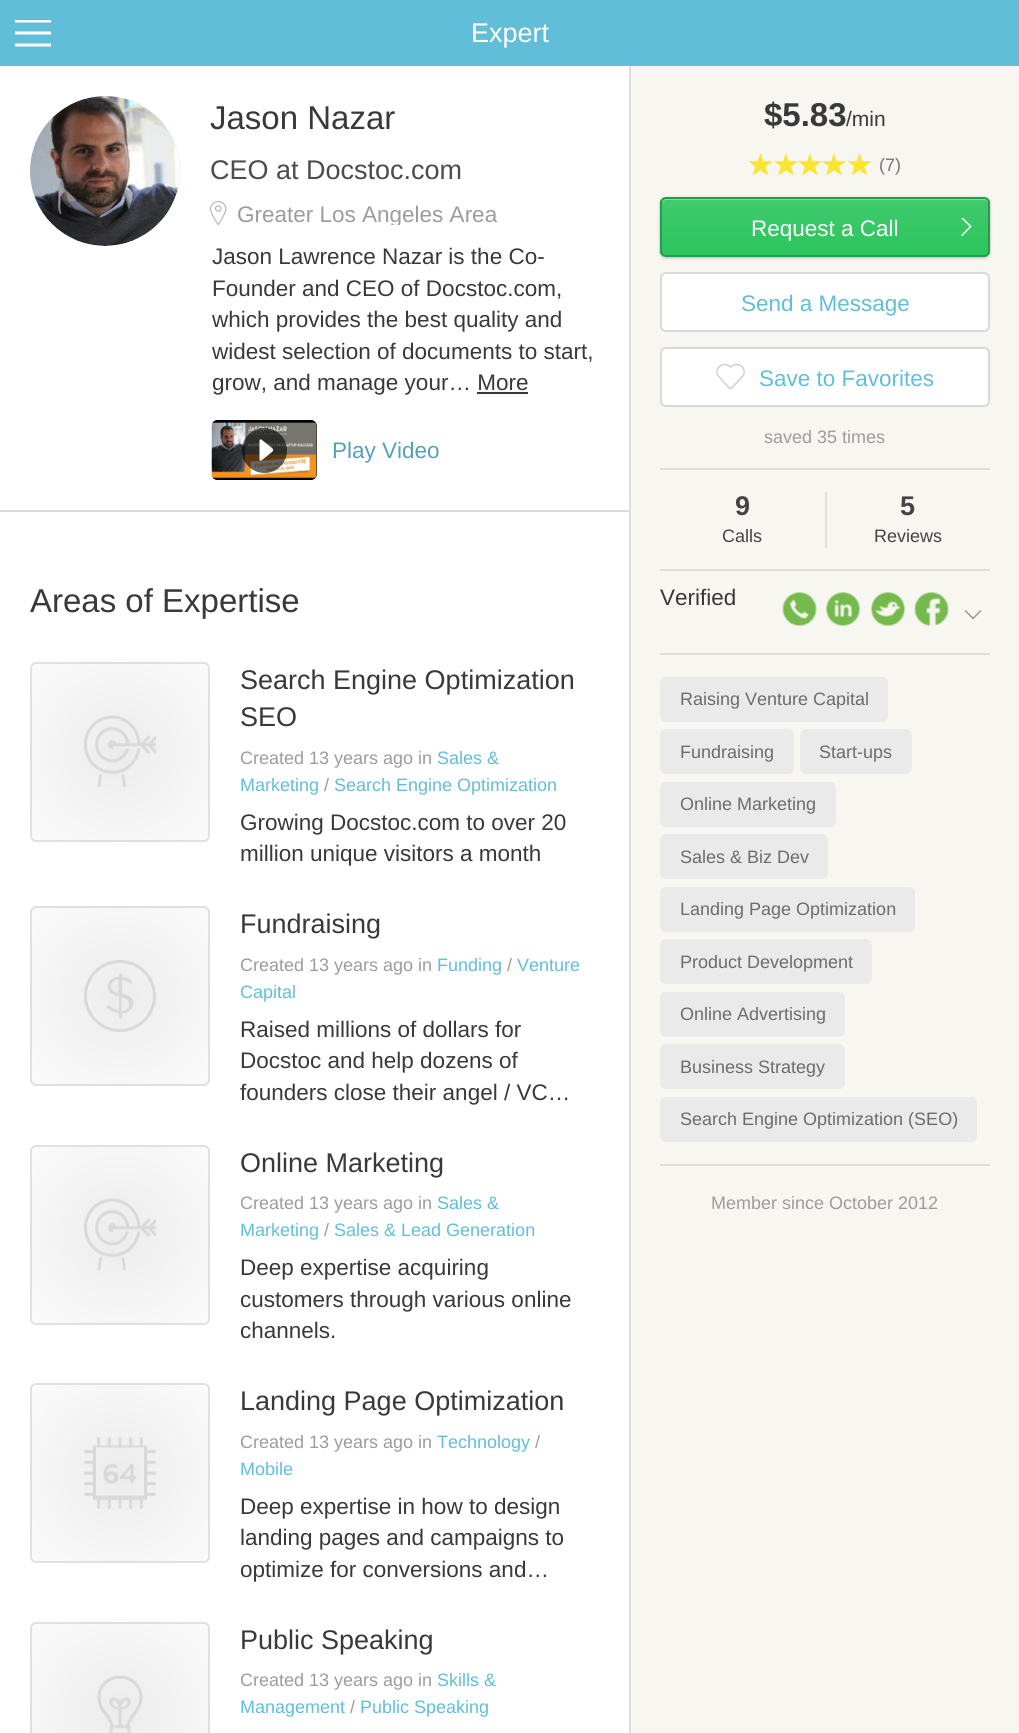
import math
import cairo



def rounded_rect(context, x, y, w, h, r):
    context.new_sub_path()
    for i, (u, v) in enumerate([(x + w - r, y + h - r), (x + r, y + h - r), (x + r, y + r), (x + w - r, y + r)]):
        context.arc(u, v, r, i * math.pi / 2, (i + 1) * math.pi / 2)
    context.close_path()


def draw_shadow(context, x, y, w, h, r, blur, alpha):
    context.push_group_with_content(cairo.Content.ALPHA)
    context.set_operator(cairo.Operator.SOURCE)
    for i in range(15, -16, -2):
        e = blur * i / 6
        if min(w, h) + 2 * e > 0:
            context.set_source_rgba(0, 0, 0, alpha * math.erfc((i - 1) / 8.5) / 2)
            rounded_rect(context, x - e, y - e, w + 2 * e, h + 2 * e, max(0, min(r + e + blur * .6, min(w, h) / 2 + e)))
            context.fill()
    context.mask(context.pop_group())


def draw_image(context, path, x, y, w, h):
    context.save()
    context.set_source_surface(cairo.ImageSurface.create_from_png(path), x, y)
    context.rectangle(x, y, w, h)
    context.fill()
    context.restore()


def draw(context):
    context.set_source_rgb(1, 1, 1)
    context.paint()
    context.set_source_rgb(97 / 255, 190 / 255, 217 / 255)
    context.rectangle(0, 0, 1019, 66)
    context.fill()
    context.save()
    context.rectangle(15, 20, 36, 27)
    context.clip()
    context.set_source_rgb(1, 1, 1)
    context.set_fill_rule(cairo.FillRule.EVEN_ODD)
    context.new_path()
    context.move_to(15, 19.5)
    context.line_to(15, 22.5)
    context.line_to(51, 22.5)
    context.line_to(51, 19.5)
    context.close_path()
    context.move_to(15, 34.5)
    context.line_to(15, 31.5)
    context.line_to(51, 31.5)
    context.line_to(51, 34.5)
    context.close_path()
    context.move_to(15, 43.5)
    context.line_to(15, 46.5)
    context.line_to(51, 46.5)
    context.line_to(51, 43.5)
    context.close_path()
    context.fill()
    context.restore()
    context.set_source_rgb(217 / 255, 217 / 255, 217 / 255)
    context.arc(105, 171, 75, 0, 2 * math.pi)
    context.fill()
    draw_image(context, "images/1.png", 30, 96, 150, 150)
    draw_image(context, "images/2.png", 210, 201, 17, 24)
    context.set_source_rgb(57 / 255, 57 / 255, 57 / 255)
    context.rectangle(477, 392, 51, 2)
    context.fill()
    rounded_rect(context, 212, 420, 105, 60, 6)
    context.fill()
    draw_image(context, "images/3.png", 211, 420, 106, 60)
    context.set_source_rgba(0, 0, 0, 0.6)
    context.arc(264.5, 450.5, 22.5, 0, 2 * math.pi)
    context.fill()
    draw_image(context, "images/4.png", 259, 439, 15, 22)
    context.set_source_rgb(247 / 255, 246 / 255, 241 / 255)
    context.rectangle(631, 66, 388, 1667)
    context.fill()
    context.set_source_rgb(224 / 255, 222 / 255, 217 / 255)
    context.rectangle(629, 66, 2, 1667)
    context.fill()
    draw_image(context, "images/5.png", 749, 153, 24, 23)
    draw_image(context, "images/6.png", 774, 153, 24, 23)
    draw_image(context, "images/6.png", 798, 153, 24, 23)
    draw_image(context, "images/6.png", 822, 153, 24, 23)
    draw_image(context, "images/5.png", 848, 153, 24, 23)
    context.set_source_rgb(0, 0, 0)
    draw_shadow(context, 660, 198, 330, 60, 6, 1.5, 0.25)
    context.save()
    rounded_rect(context, 660, 197, 330, 60, 6)
    context.clip()
    gradient = cairo.LinearGradient(825, 198, 825, 255)
    gradient.add_color_stop_rgba(0, 65 / 255, 202 / 255, 109 / 255, 1)
    gradient.add_color_stop_rgba(1, 44 / 255, 197 / 255, 93 / 255, 1)
    context.set_source(gradient)
    context.rectangle(660, 198, 330, 57)
    context.fill()
    context.restore()
    context.set_source_rgba(1, 1, 1, 0.35)
    context.new_path()
    context.move_to(666, 200)
    context.line_to(984, 200)
    context.curve_to(986, 200, 988, 202, 988, 204)
    context.line_to(988, 253)
    context.curve_to(989, 252, 989, 251, 989, 250)
    context.line_to(989, 203)
    context.curve_to(989, 200, 987, 198, 984, 198)
    context.line_to(667, 198)
    context.curve_to(664, 198, 662, 200, 662, 203)
    context.line_to(662, 204)
    context.curve_to(662, 202, 664, 200, 666, 200)
    context.close_path()
    context.fill()
    rounded_rect(context, 661, 198, 328, 58, 5)
    context.set_source_rgb(35 / 255, 157 / 255, 74 / 255)
    context.stroke()
    draw_image(context, "images/7.png", 961, 218, 11, 19)
    context.set_source_rgb(1, 1, 1)
    rounded_rect(context, 661, 273, 328, 58, 5)
    context.fill_preserve()
    context.set_source_rgb(217 / 255, 217 / 255, 217 / 255)
    context.stroke()
    context.set_source_rgb(1, 1, 1)
    rounded_rect(context, 661, 348, 328, 58, 5)
    context.fill_preserve()
    context.set_source_rgb(217 / 255, 217 / 255, 217 / 255)
    context.stroke()
    draw_image(context, "images/8.png", 716, 363, 29, 27)
    context.set_source_rgb(224 / 255, 222 / 255, 217 / 255)
    context.rectangle(660, 468, 330, 2)
    context.fill()
    context.rectangle(825, 492, 2, 56)
    context.fill()
    context.rectangle(660, 569, 330, 2)
    context.fill()
    draw_image(context, "images/9.png", 782, 592, 35, 34)
    draw_image(context, "images/10.png", 826, 592, 34, 34)
    draw_image(context, "images/11.png", 871, 592, 34, 34)
    draw_image(context, "images/12.png", 914, 592, 35, 34)
    draw_image(context, "images/13.png", 964, 610, 18, 10)
    context.rectangle(660, 653, 330, 2)
    context.fill()
    context.set_source_rgb(234 / 255, 234 / 255, 234 / 255)
    rounded_rect(context, 660, 677, 228, 45, 6)
    context.fill()
    rounded_rect(context, 660, 729, 134, 45, 6)
    context.fill()
    rounded_rect(context, 800, 729, 112, 45, 6)
    context.fill()
    rounded_rect(context, 660, 782, 176, 45, 6)
    context.fill()
    rounded_rect(context, 660, 834, 168, 45, 6)
    context.fill()
    rounded_rect(context, 660, 887, 255, 45, 6)
    context.fill()
    rounded_rect(context, 660, 939, 212, 45, 6)
    context.fill()
    rounded_rect(context, 660, 992, 185, 45, 6)
    context.fill()
    rounded_rect(context, 660, 1044, 185, 45, 6)
    context.fill()
    rounded_rect(context, 660, 1097, 317, 45, 6)
    context.fill()
    context.set_source_rgb(224 / 255, 222 / 255, 217 / 255)
    context.rectangle(660, 1164, 330, 2)
    context.fill()
    context.set_source_rgb(217 / 255, 217 / 255, 217 / 255)
    context.rectangle(0, 510, 629, 2)
    context.fill()
    gradient = cairo.RadialGradient(120, 752, 0, 120, 752, 127)
    gradient.add_color_stop_rgba(0, 236 / 255, 236 / 255, 236 / 255, 1)
    gradient.add_color_stop_rgba(1, 251 / 255, 251 / 255, 251 / 255, 1)
    context.set_source(gradient)
    rounded_rect(context, 30, 662, 180, 180, 6)
    context.fill()
    draw_image(context, "images/14.png", 84, 715, 72, 73)
    rounded_rect(context, 31, 663, 178, 178, 5)
    context.set_source_rgba(0, 0, 0, 0.1)
    context.stroke()
    gradient = cairo.RadialGradient(120, 996, 0, 120, 996, 127)
    gradient.add_color_stop_rgba(0, 236 / 255, 236 / 255, 236 / 255, 1)
    gradient.add_color_stop_rgba(1, 251 / 255, 251 / 255, 251 / 255, 1)
    context.set_source(gradient)
    rounded_rect(context, 30, 906, 180, 180, 6)
    context.fill()
    draw_image(context, "images/15.png", 84, 960, 72, 72)
    rounded_rect(context, 31, 907, 178, 178, 5)
    context.set_source_rgba(0, 0, 0, 0.1)
    context.stroke()
    gradient = cairo.RadialGradient(120, 1235, 0, 120, 1235, 127)
    gradient.add_color_stop_rgba(0, 236 / 255, 236 / 255, 236 / 255, 1)
    gradient.add_color_stop_rgba(1, 251 / 255, 251 / 255, 251 / 255, 1)
    context.set_source(gradient)
    rounded_rect(context, 30, 1145, 180, 180, 6)
    context.fill()
    draw_image(context, "images/16.png", 84, 1198, 72, 73)
    rounded_rect(context, 31, 1146, 178, 178, 5)
    context.set_source_rgba(0, 0, 0, 0.1)
    context.stroke()
    gradient = cairo.RadialGradient(120, 1473, 0, 120, 1473, 127)
    gradient.add_color_stop_rgba(0, 236 / 255, 236 / 255, 236 / 255, 1)
    gradient.add_color_stop_rgba(1, 251 / 255, 251 / 255, 251 / 255, 1)
    context.set_source(gradient)
    rounded_rect(context, 30, 1383, 180, 180, 6)
    context.fill()
    draw_image(context, "images/17.png", 84, 1437, 72, 72)
    rounded_rect(context, 31, 1384, 178, 178, 5)
    context.set_source_rgba(0, 0, 0, 0.1)
    context.stroke()
    gradient = cairo.RadialGradient(120, 1712, 0, 120, 1712, 127)
    gradient.add_color_stop_rgba(0, 236 / 255, 236 / 255, 236 / 255, 1)
    gradient.add_color_stop_rgba(1, 251 / 255, 251 / 255, 251 / 255, 1)
    context.set_source(gradient)
    context.new_path()
    context.move_to(36, 1622)
    context.line_to(204, 1622)
    context.curve_to(207.5, 1622, 210, 1624.5, 210, 1628)
    context.line_to(210, 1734)
    context.line_to(30, 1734)
    context.line_to(30, 1628)
    context.curve_to(30, 1624.5, 32.5, 1622, 36, 1622)
    context.close_path()
    context.fill()
    draw_image(context, "images/18.png", 97, 1675, 46, 58)
    rounded_rect(context, 31, 1623, 178, 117, 5)
    context.set_source_rgba(0, 0, 0, 0.1)
    context.stroke()
    context.select_font_face("Liberation Sans")
    context.set_font_size(27)
    context.set_source_rgb(1, 1, 1)
    context.move_to(471, 42)
    context.show_text("Expert")
    context.set_font_size(33)
    context.set_source_rgb(57 / 255, 57 / 255, 57 / 255)
    context.move_to(210, 129)
    context.show_text("Jason Nazar")
    context.set_font_size(27)
    context.set_source_rgb(76 / 255, 76 / 255, 76 / 255)
    context.move_to(210, 179)
    context.show_text("CEO at Docstoc.com")
    context.save()
    context.rectangle(210, 198, 390, 27)
    context.clip()
    context.set_font_size(22.5)
    context.set_source_rgb(156 / 255, 156 / 255, 156 / 255)
    context.move_to(237, 222)
    context.show_text("Greater Los Angeles Area")
    context.restore()
    context.set_font_size(22.5)
    context.set_source_rgb(57 / 255, 57 / 255, 57 / 255)
    context.move_to(212, 264)
    context.show_text("Jason Lawrence Nazar is the Co-")
    context.move_to(212, 296)
    context.show_text("Founder and CEO of Docstoc.com,")
    context.move_to(212, 327)
    context.show_text("which provides the best quality and")
    context.move_to(212, 359)
    context.show_text("widest selection of documents to start,")
    context.move_to(212, 390)
    context.show_text("grow, and manage your… More")
    context.set_source_rgb(82 / 255, 161 / 255, 184 / 255)
    context.move_to(332, 458)
    context.show_text("Play Video")
    context.select_font_face("Liberation Sans", cairo.FontSlant.NORMAL, cairo.FontWeight.BOLD)
    context.set_font_size(33)
    context.set_source_rgb(57 / 255, 57 / 255, 57 / 255)
    context.move_to(764, 126)
    context.show_text("$5.83")
    context.select_font_face("Liberation Sans")
    context.set_font_size(21)
    context.move_to(846, 126)
    context.show_text("/min")
    context.set_font_size(18)
    context.set_source_rgb(116 / 255, 116 / 255, 116 / 255)
    context.move_to(879, 171)
    context.show_text("(7)")
    context.set_font_size(22.5)
    context.set_source_rgb(1, 1, 1)
    context.move_to(751, 236)
    context.show_text("Request a Call")
    context.set_source_rgb(97 / 255, 190 / 255, 217 / 255)
    context.move_to(741, 311)
    context.show_text("Send a Message")
    context.move_to(759, 386)
    context.show_text("Save to Favorites")
    context.set_font_size(18)
    context.set_source_rgb(156 / 255, 156 / 255, 156 / 255)
    context.move_to(764, 443)
    context.show_text("saved 35 times")
    context.select_font_face("Liberation Sans", cairo.FontSlant.NORMAL, cairo.FontWeight.BOLD)
    context.set_font_size(27)
    context.set_source_rgb(68 / 255, 68 / 255, 68 / 255)
    context.move_to(735, 515)
    context.show_text("9")
    context.select_font_face("Liberation Sans")
    context.set_font_size(18)
    context.move_to(722, 542)
    context.show_text("Calls")
    context.select_font_face("Liberation Sans", cairo.FontSlant.NORMAL, cairo.FontWeight.BOLD)
    context.set_font_size(27)
    context.move_to(900, 515)
    context.show_text("5")
    context.select_font_face("Liberation Sans")
    context.set_font_size(18)
    context.move_to(874, 542)
    context.show_text("Reviews")
    context.set_font_size(22.5)
    context.set_source_rgb(57 / 255, 57 / 255, 57 / 255)
    context.move_to(660, 605)
    context.show_text("Verified")
    context.set_font_size(18)
    context.set_source_rgb(108 / 255, 108 / 255, 108 / 255)
    context.move_to(680, 705)
    context.show_text("Raising Venture Capital")
    context.move_to(680, 758)
    context.show_text("Fundraising")
    context.move_to(819, 758)
    context.show_text("Start-ups")
    context.move_to(680, 810)
    context.show_text("Online Marketing")
    context.move_to(680, 863)
    context.show_text("Sales & Biz Dev")
    context.move_to(680, 915)
    context.show_text("Landing Page Optimization")
    context.move_to(680, 968)
    context.show_text("Product Development")
    context.move_to(680, 1020)
    context.show_text("Online Advertising")
    context.move_to(680, 1073)
    context.show_text("Business Strategy")
    context.move_to(680, 1125)
    context.show_text("Search Engine Optimization (SEO)")
    context.set_source_rgb(156 / 255, 156 / 255, 156 / 255)
    context.move_to(711, 1209)
    context.show_text("Member since October 2012")
    context.set_font_size(33)
    context.set_source_rgb(57 / 255, 57 / 255, 57 / 255)
    context.move_to(30, 612)
    context.show_text("Areas of Expertise")
    context.set_font_size(27)
    context.move_to(240, 689)
    context.show_text("Search Engine Optimization")
    context.move_to(240, 726)
    context.show_text("SEO")
    context.set_font_size(18)
    context.set_source_rgb(156 / 255, 156 / 255, 156 / 255)
    context.move_to(240, 764)
    context.show_text("Created 13 years ago in")
    context.set_source_rgb(97 / 255, 190 / 255, 217 / 255)
    context.move_to(437, 764)
    context.show_text("Sales &")
    context.move_to(240, 791)
    context.show_text("Marketing")
    context.set_source_rgb(156 / 255, 156 / 255, 156 / 255)
    context.move_to(324, 791)
    context.show_text("/")
    context.set_source_rgb(97 / 255, 190 / 255, 217 / 255)
    context.move_to(334, 791)
    context.show_text("Search Engine Optimization")
    context.set_font_size(22.5)
    context.set_source_rgb(57 / 255, 57 / 255, 57 / 255)
    context.move_to(240, 830)
    context.show_text("Growing Docstoc.com to over 20")
    context.move_to(240, 861)
    context.show_text("million unique visitors a month")
    context.set_font_size(27)
    context.move_to(240, 933)
    context.show_text("Fundraising")
    context.set_font_size(18)
    context.set_source_rgb(156 / 255, 156 / 255, 156 / 255)
    context.move_to(240, 971)
    context.show_text("Created 13 years ago in")
    context.set_source_rgb(97 / 255, 190 / 255, 217 / 255)
    context.move_to(437, 971)
    context.show_text("Funding")
    context.set_source_rgb(156 / 255, 156 / 255, 156 / 255)
    context.move_to(507, 971)
    context.show_text("/")
    context.set_source_rgb(97 / 255, 190 / 255, 217 / 255)
    context.move_to(517, 971)
    context.show_text("Venture")
    context.move_to(240, 998)
    context.show_text("Capital")
    context.set_font_size(22.5)
    context.set_source_rgb(57 / 255, 57 / 255, 57 / 255)
    context.move_to(240, 1037)
    context.show_text("Raised millions of dollars for")
    context.move_to(240, 1068)
    context.show_text("Docstoc and help dozens of")
    context.move_to(240, 1100)
    context.show_text("founders close their angel / VC…")
    context.set_font_size(27)
    context.move_to(240, 1172)
    context.show_text("Online Marketing")
    context.set_font_size(18)
    context.set_source_rgb(156 / 255, 156 / 255, 156 / 255)
    context.move_to(240, 1209)
    context.show_text("Created 13 years ago in")
    context.set_source_rgb(97 / 255, 190 / 255, 217 / 255)
    context.move_to(437, 1209)
    context.show_text("Sales &")
    context.move_to(240, 1236)
    context.show_text("Marketing")
    context.set_source_rgb(156 / 255, 156 / 255, 156 / 255)
    context.move_to(324, 1236)
    context.show_text("/")
    context.set_source_rgb(97 / 255, 190 / 255, 217 / 255)
    context.move_to(334, 1236)
    context.show_text("Sales & Lead Generation")
    context.set_font_size(22.5)
    context.set_source_rgb(57 / 255, 57 / 255, 57 / 255)
    context.move_to(240, 1275)
    context.show_text("Deep expertise acquiring")
    context.move_to(240, 1307)
    context.show_text("customers through various online")
    context.move_to(240, 1338)
    context.show_text("channels.")
    context.set_font_size(27)
    context.move_to(240, 1410)
    context.show_text("Landing Page Optimization")
    context.set_font_size(18)
    context.set_source_rgb(156 / 255, 156 / 255, 156 / 255)
    context.move_to(240, 1448)
    context.show_text("Created 13 years ago in")
    context.set_source_rgb(97 / 255, 190 / 255, 217 / 255)
    context.move_to(437, 1448)
    context.show_text("Technology")
    context.set_source_rgb(156 / 255, 156 / 255, 156 / 255)
    context.move_to(535, 1448)
    context.show_text("/")
    context.set_source_rgb(97 / 255, 190 / 255, 217 / 255)
    context.move_to(240, 1475)
    context.show_text("Mobile")
    context.set_font_size(22.5)
    context.set_source_rgb(57 / 255, 57 / 255, 57 / 255)
    context.move_to(240, 1514)
    context.show_text("Deep expertise in how to design")
    context.move_to(240, 1545)
    context.show_text("landing pages and campaigns to")
    context.move_to(240, 1577)
    context.show_text("optimize for conversions and…")
    context.set_font_size(27)
    context.move_to(240, 1649)
    context.show_text("Public Speaking")
    context.set_font_size(18)
    context.set_source_rgb(156 / 255, 156 / 255, 156 / 255)
    context.move_to(240, 1686)
    context.show_text("Created 13 years ago in")
    context.set_source_rgb(97 / 255, 190 / 255, 217 / 255)
    context.move_to(437, 1686)
    context.show_text("Skills &")
    context.move_to(240, 1713)
    context.show_text("Management")
    context.set_source_rgb(156 / 255, 156 / 255, 156 / 255)
    context.move_to(350, 1713)
    context.show_text("/")
    context.set_source_rgb(97 / 255, 190 / 255, 217 / 255)
    context.move_to(360, 1713)
    context.show_text("Public Speaking")


surface = cairo.ImageSurface(cairo.Format.RGB24, 1019, 1733)
context = cairo.Context(surface)
options = cairo.FontOptions()
options.set_hint_metrics(cairo.HintMetrics.OFF)
options.set_hint_style(cairo.HintStyle.NONE)
context.set_font_options(options)
context.set_miter_limit(4)
draw(context)
surface.write_to_png("out.png")
